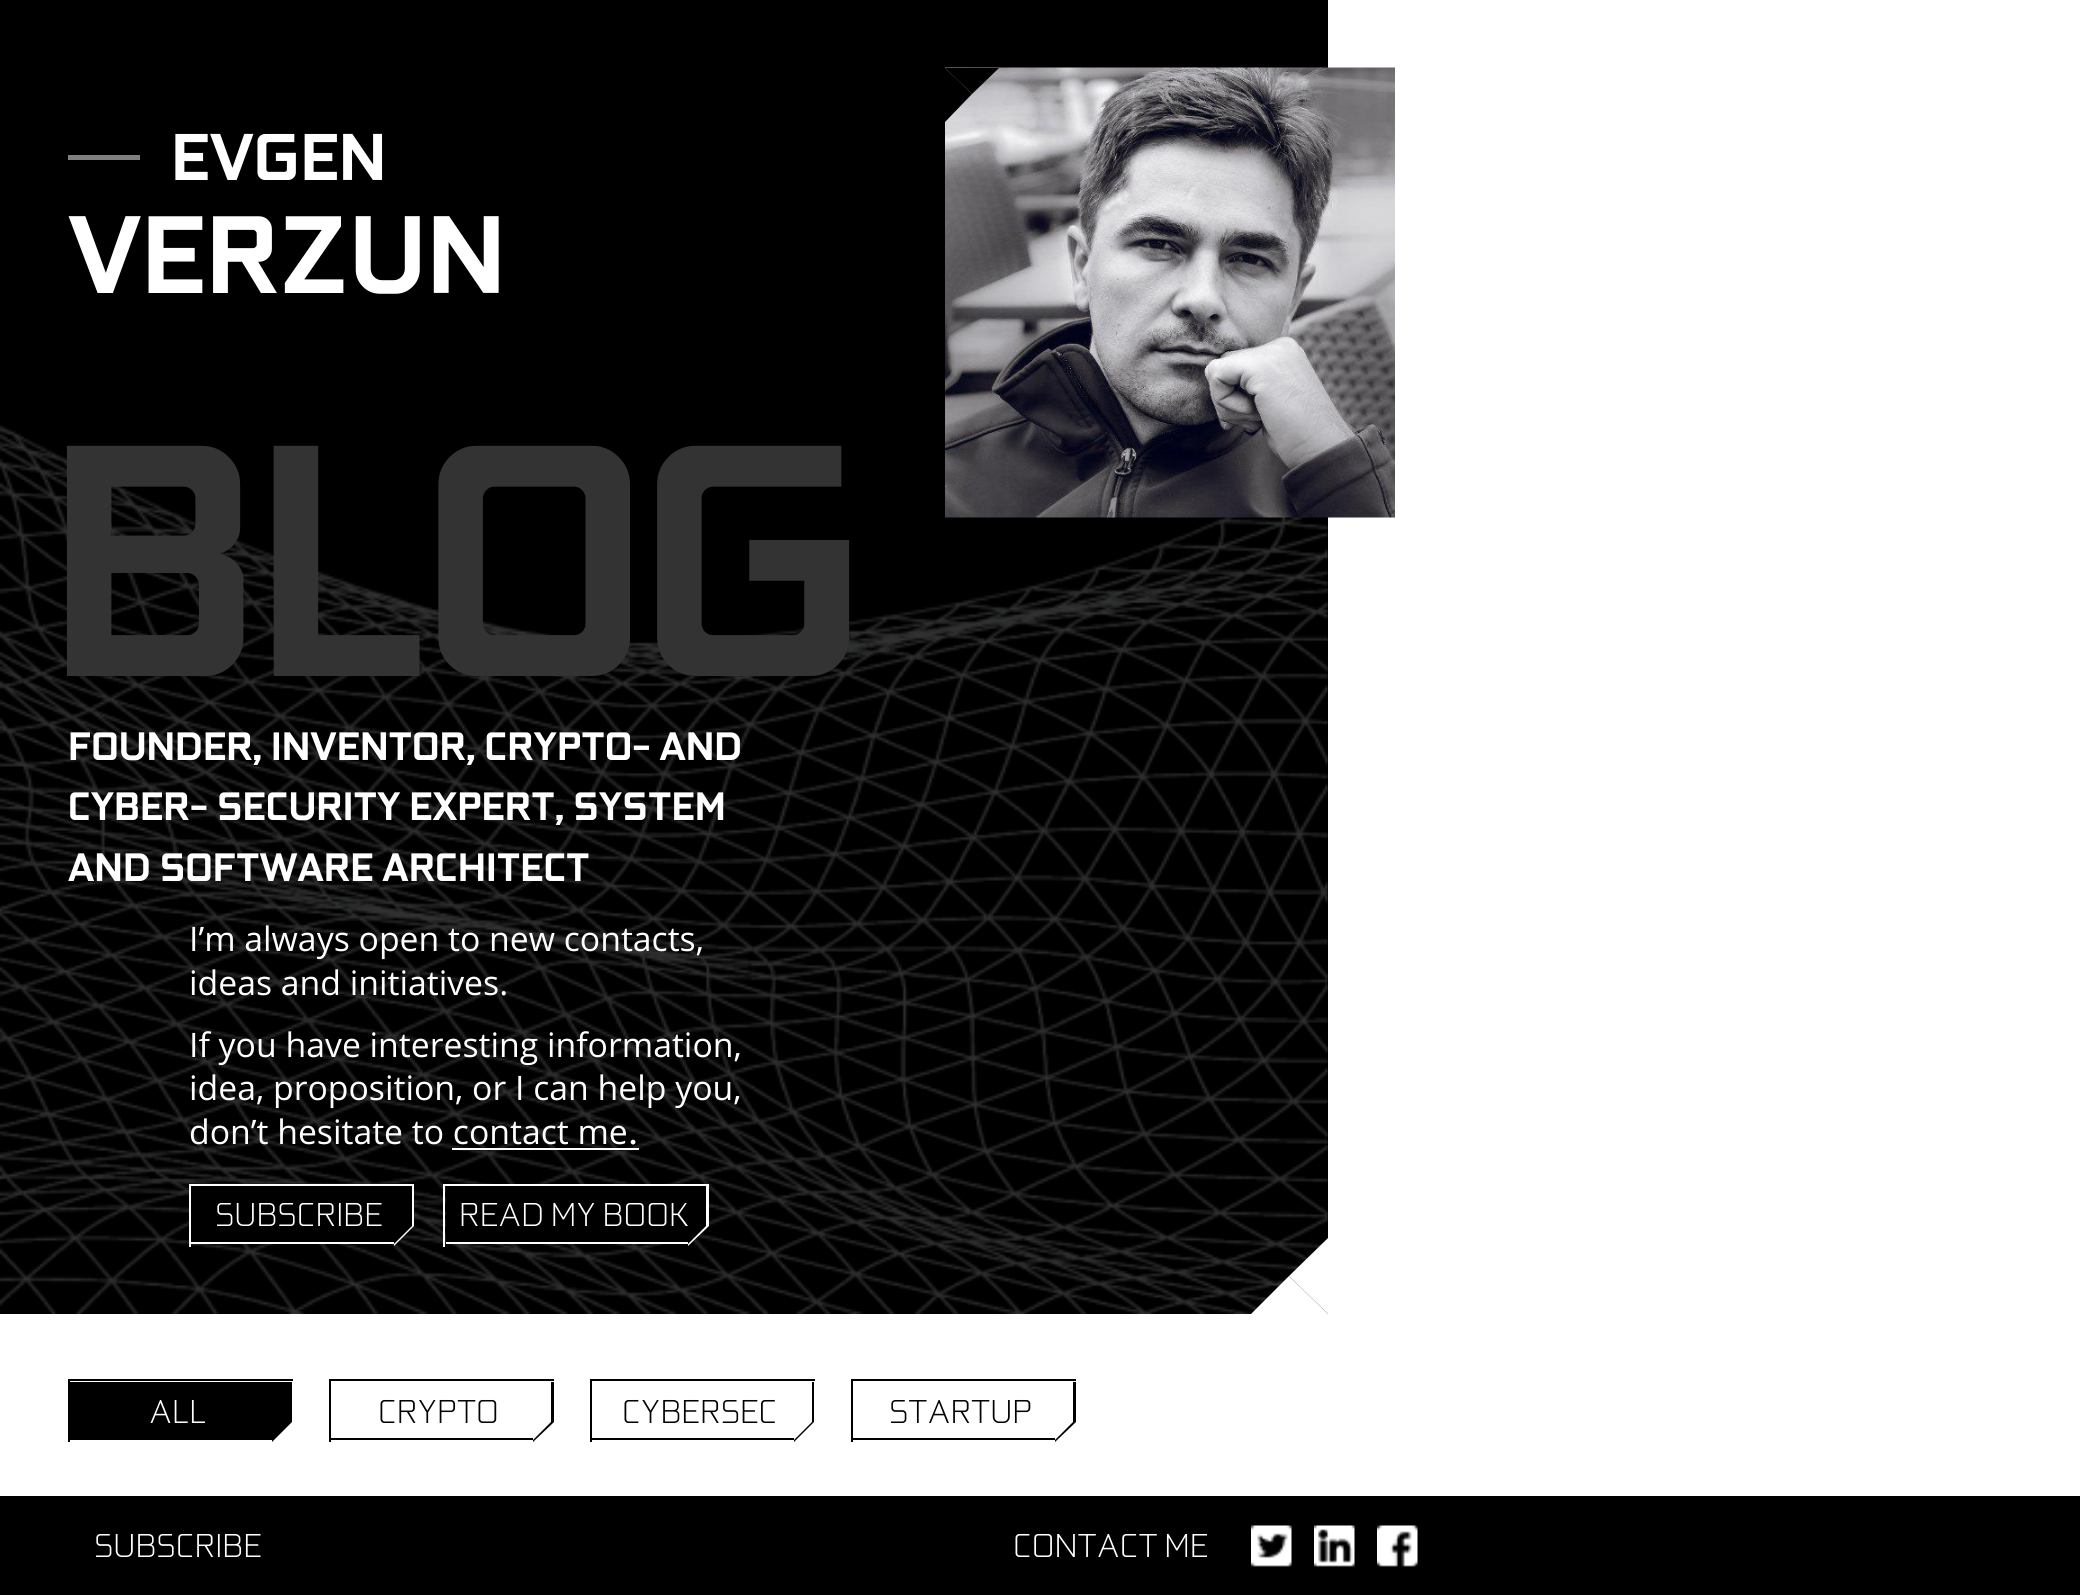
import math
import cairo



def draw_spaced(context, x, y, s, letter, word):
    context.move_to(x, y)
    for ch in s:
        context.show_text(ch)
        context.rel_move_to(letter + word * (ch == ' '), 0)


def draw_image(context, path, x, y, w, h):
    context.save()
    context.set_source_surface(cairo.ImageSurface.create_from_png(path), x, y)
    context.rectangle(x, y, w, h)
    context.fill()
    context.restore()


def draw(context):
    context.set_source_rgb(1, 1, 1)
    context.paint()
    context.set_source_rgb(0, 0, 0)
    context.rectangle(0, 0, 1328, 1314)
    context.fill()
    draw_image(context, "images/1.png", 0, 425, 1328, 889)
    context.set_source_rgb(128 / 255, 128 / 255, 128 / 255)
    context.rectangle(68, 155, 72, 5)
    context.fill()
    draw_image(context, "images/2.png", 945, 67, 450, 451)
    context.set_source_rgb(0, 0, 0)
    context.new_path()
    context.move_to(945, 68)
    context.line_to(999, 68)
    context.line_to(972, 94)
    context.close_path()
    context.fill()
    context.new_path()
    context.move_to(945, 122)
    context.line_to(945, 68)
    context.line_to(972, 94)
    context.close_path()
    context.fill()
    context.set_source_rgb(1, 1, 1)
    context.rectangle(452, 1148, 187, 2)
    context.fill()
    context.rectangle(189, 1184, 225, 2)
    context.fill()
    context.rectangle(189, 1184, 2, 63)
    context.fill()
    context.set_source_rgb(0, 0, 0)
    context.rectangle(191, 1186, 203, 56)
    context.fill()
    context.set_source_rgb(1, 1, 1)
    context.rectangle(191, 1242, 203, 2)
    context.fill()
    context.new_path()
    context.move_to(394, 1246)
    context.line_to(394, 1186)
    context.line_to(414, 1186)
    context.line_to(414, 1226)
    context.close_path()
    context.fill()
    context.set_source_rgb(0, 0, 0)
    context.new_path()
    context.move_to(394, 1244)
    context.line_to(394, 1186)
    context.line_to(412, 1186)
    context.line_to(412, 1226)
    context.close_path()
    context.fill()
    context.set_source_rgb(1, 1, 1)
    context.rectangle(443, 1184, 266, 2)
    context.fill()
    context.rectangle(443, 1184, 2, 63)
    context.fill()
    context.set_source_rgb(0, 0, 0)
    context.rectangle(446, 1186, 242, 56)
    context.fill()
    context.set_source_rgb(1, 1, 1)
    context.rectangle(446, 1242, 243, 2)
    context.fill()
    context.new_path()
    context.move_to(688, 1246)
    context.line_to(688, 1186)
    context.line_to(709, 1186)
    context.line_to(709, 1226)
    context.close_path()
    context.fill()
    context.new_path()
    context.move_to(1328, 1238)
    context.line_to(1328, 1314)
    context.line_to(1289, 1276)
    context.close_path()
    context.fill()
    context.new_path()
    context.move_to(1328, 1314)
    context.line_to(1251, 1314)
    context.line_to(1289, 1276)
    context.close_path()
    context.fill()
    context.set_source_rgb(0, 0, 0)
    context.rectangle(68, 1379, 225, 2)
    context.fill()
    context.rectangle(68, 1379, 2, 63)
    context.fill()
    context.rectangle(70, 1382, 202, 58)
    context.fill()
    context.new_path()
    context.move_to(272, 1442)
    context.line_to(272, 1382)
    context.line_to(292, 1382)
    context.line_to(292, 1422)
    context.close_path()
    context.fill()
    context.rectangle(329, 1379, 225, 2)
    context.fill()
    context.rectangle(329, 1379, 2, 63)
    context.fill()
    context.rectangle(331, 1438, 202, 2)
    context.fill()
    context.new_path()
    context.move_to(533, 1442)
    context.line_to(533, 1382)
    context.line_to(554, 1382)
    context.line_to(554, 1422)
    context.close_path()
    context.fill()
    context.set_source_rgb(1, 1, 1)
    context.new_path()
    context.move_to(533, 1440)
    context.line_to(533, 1382)
    context.line_to(551, 1382)
    context.line_to(551, 1422)
    context.close_path()
    context.fill()
    context.set_source_rgb(0, 0, 0)
    context.rectangle(590, 1379, 225, 2)
    context.fill()
    context.rectangle(590, 1379, 2, 63)
    context.fill()
    context.rectangle(592, 1438, 202, 2)
    context.fill()
    context.new_path()
    context.move_to(794, 1442)
    context.line_to(794, 1382)
    context.line_to(814, 1382)
    context.line_to(814, 1422)
    context.close_path()
    context.fill()
    context.set_source_rgb(1, 1, 1)
    context.new_path()
    context.move_to(794, 1440)
    context.line_to(794, 1382)
    context.line_to(812, 1382)
    context.line_to(812, 1422)
    context.close_path()
    context.fill()
    context.set_source_rgb(0, 0, 0)
    context.rectangle(851, 1379, 225, 2)
    context.fill()
    context.rectangle(851, 1379, 2, 63)
    context.fill()
    context.rectangle(853, 1438, 202, 2)
    context.fill()
    context.new_path()
    context.move_to(1055, 1442)
    context.line_to(1055, 1382)
    context.line_to(1076, 1382)
    context.line_to(1076, 1422)
    context.close_path()
    context.fill()
    context.set_source_rgb(1, 1, 1)
    context.new_path()
    context.move_to(1055, 1440)
    context.line_to(1055, 1382)
    context.line_to(1073, 1382)
    context.line_to(1073, 1422)
    context.close_path()
    context.fill()
    context.set_source_rgb(0, 0, 0)
    context.rectangle(0, 1496, 2080, 99)
    context.fill()
    draw_image(context, "images/3.png", 1251, 1525, 41, 42)
    draw_image(context, "images/4.png", 1314, 1525, 41, 42)
    draw_image(context, "images/5.png", 1377, 1525, 41, 42)
    context.select_font_face("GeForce", cairo.FontSlant.NORMAL, cairo.FontWeight.BOLD)
    context.set_font_size(67.5)
    context.set_source_rgb(1, 1, 1)
    context.move_to(171, 180)
    context.show_text("EVGEN")
    context.set_font_size(112.5)
    context.move_to(68, 293)
    context.show_text("VERZUN")
    context.set_font_size(337.5)
    context.set_source_rgb(51 / 255, 51 / 255, 51 / 255)
    draw_spaced(context, 45, 676, "BLOG", -10, 0)
    context.set_font_size(40.5)
    context.set_source_rgb(1, 1, 1)
    context.move_to(68, 760)
    context.show_text("FOUNDER, INVENTOR, CRYPTO- AND")
    context.move_to(68, 820)
    context.show_text("CYBER- SECURITY EXPERT, SYSTEM")
    context.move_to(68, 881)
    context.show_text("AND SOFTWARE ARCHITECT")
    context.select_font_face("Open Sans")
    context.set_font_size(33.75)
    context.move_to(189, 951)
    context.show_text("I’m always open to new contacts,")
    context.move_to(189, 995)
    context.show_text("ideas and initiatives.")
    context.move_to(189, 1057)
    context.show_text("If you have interesting information,")
    context.move_to(189, 1100)
    context.show_text("idea, proposition, or I can help you,")
    context.move_to(189, 1144)
    context.show_text("don’t hesitate to contact me")
    context.select_font_face("Source Serif Pro")
    context.move_to(628, 1144)
    context.show_text(".")
    context.select_font_face("GeForce Light")
    context.move_to(215, 1226)
    context.show_text("SUBSCRIBE")
    context.move_to(459, 1226)
    context.show_text("READ MY BOOK")
    context.set_source_rgb(0, 0, 0)
    context.new_path()
    context.move_to(688, 1244)
    context.line_to(688, 1186)
    context.line_to(706, 1186)
    context.line_to(706, 1226)
    context.close_path()
    context.fill()
    context.set_source_rgb(1, 1, 1)
    context.move_to(149, 1423)
    context.show_text("ALL")
    context.set_source_rgb(0, 0, 0)
    context.move_to(378, 1423)
    context.show_text("CRYPTO")
    context.move_to(622, 1423)
    context.show_text("CYBERSEC")
    context.move_to(889, 1423)
    context.show_text("STARTUP")
    context.set_source_rgb(1, 1, 1)
    context.move_to(94, 1557)
    context.show_text("SUBSCRIBE")
    context.move_to(1013, 1557)
    context.show_text("CONTACT ME")


surface = cairo.ImageSurface(cairo.Format.RGB24, 2080, 1595)
context = cairo.Context(surface)
options = cairo.FontOptions()
options.set_hint_metrics(cairo.HintMetrics.OFF)
options.set_hint_style(cairo.HintStyle.NONE)
context.set_font_options(options)
context.set_miter_limit(4)
draw(context)
surface.write_to_png("out.png")
